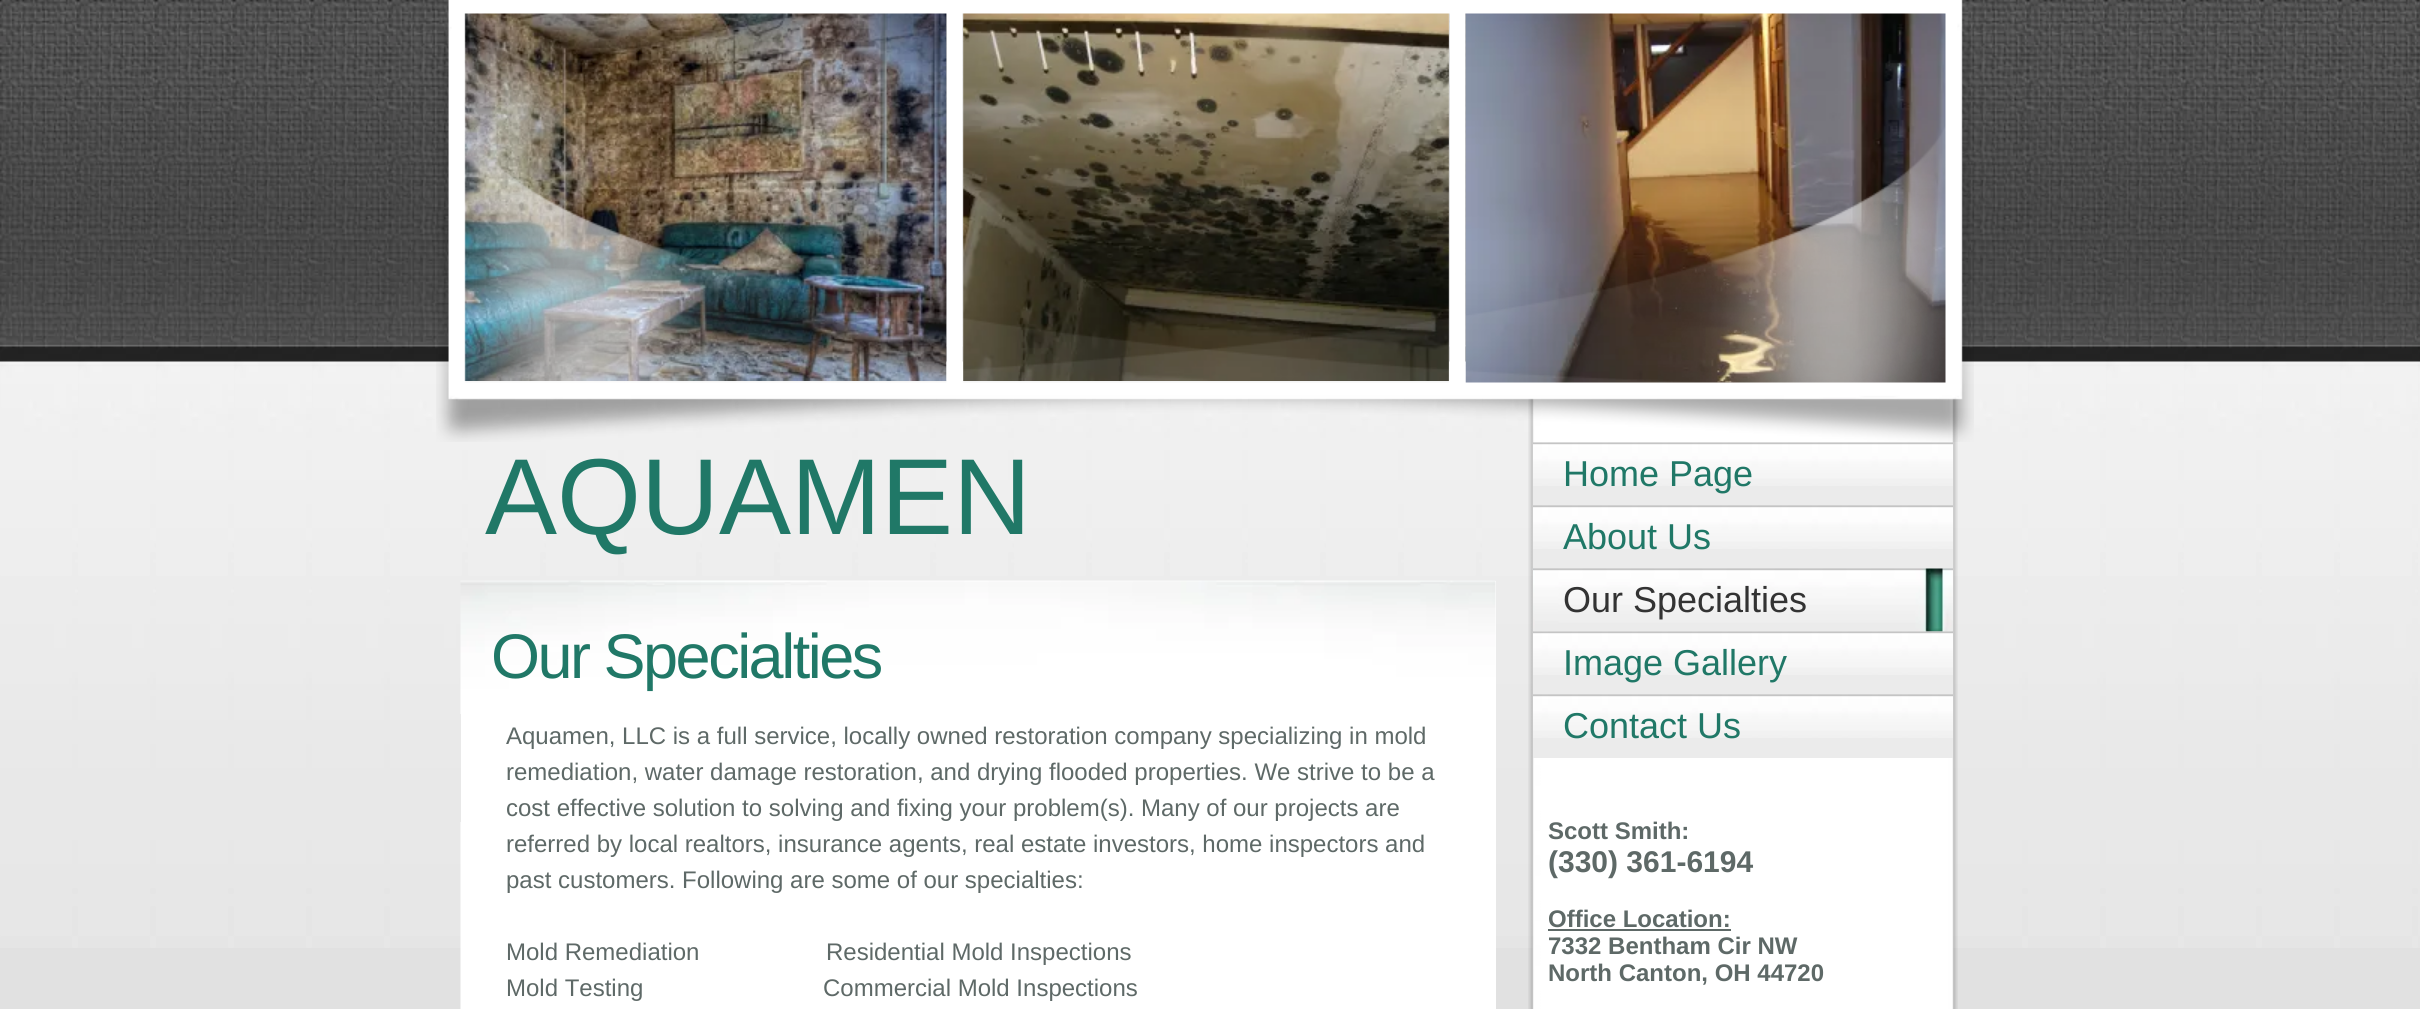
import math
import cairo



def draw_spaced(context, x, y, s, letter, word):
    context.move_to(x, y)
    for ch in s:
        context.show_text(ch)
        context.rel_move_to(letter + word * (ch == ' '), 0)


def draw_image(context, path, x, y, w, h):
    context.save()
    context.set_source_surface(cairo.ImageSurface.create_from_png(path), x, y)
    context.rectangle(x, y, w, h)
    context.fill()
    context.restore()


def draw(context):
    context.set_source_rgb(225 / 255, 225 / 255, 225 / 255)
    context.paint()
    draw_image(context, "images/1.png", 0, 0, 2420, 948)
    draw_image(context, "images/2.png", 1528, 398, 430, 611)
    draw_image(context, "images/4.png", 464, 13, 483, 368)
    draw_image(context, "images/5.png", 963, 13, 486, 368)
    draw_image(context, "images/6.png", 1465, 13, 481, 370)
    draw_image(context, "images/3.png", 436, 0, 1538, 442)
    context.set_source_rgb(235 / 255, 235 / 255, 235 / 255)
    context.rectangle(1533, 486, 420, 20)
    context.fill()
    draw_image(context, "images/7.png", 1533, 442, 420, 44)
    context.rectangle(1533, 549, 420, 20)
    context.fill()
    draw_image(context, "images/8.png", 1533, 505, 420, 44)
    draw_image(context, "images/9.png", 1533, 568, 420, 64)
    context.rectangle(1533, 675, 420, 20)
    context.fill()
    draw_image(context, "images/10.png", 1533, 631, 420, 44)
    context.rectangle(1533, 738, 420, 20)
    context.fill()
    draw_image(context, "images/11.png", 1533, 694, 420, 44)
    context.set_source_rgb(94 / 255, 105 / 255, 103 / 255)
    context.rectangle(1548, 929, 183, 2)
    context.fill()
    context.set_source_rgb(1, 1, 1)
    context.rectangle(461, 581, 1035, 428)
    context.fill()
    draw_image(context, "images/12.png", 460, 580, 1036, 134)
    context.set_source_rgba(1, 1, 1, 0.5)
    context.rectangle(460, 822, 1, 187)
    context.fill()
    context.select_font_face("Liberation Sans")
    context.set_font_size(108)
    context.set_source_rgb(32 / 255, 120 / 255, 103 / 255)
    context.move_to(485, 534)
    context.show_text("AQUAMEN")
    context.set_font_size(36)
    context.move_to(1563, 486)
    context.show_text("Home Page")
    context.move_to(1563, 549)
    context.show_text("About Us")
    context.set_source_rgb(51 / 255, 51 / 255, 51 / 255)
    context.move_to(1563, 612)
    context.show_text("Our Specialties")
    context.set_source_rgb(32 / 255, 120 / 255, 103 / 255)
    context.move_to(1563, 675)
    context.show_text("Image Gallery")
    context.move_to(1563, 738)
    context.show_text("Contact Us")
    context.select_font_face("Liberation Sans", cairo.FontSlant.NORMAL, cairo.FontWeight.BOLD)
    context.set_font_size(24)
    context.set_source_rgb(94 / 255, 105 / 255, 103 / 255)
    context.move_to(1548, 839)
    context.show_text("Scott Smith:")
    context.set_font_size(30)
    context.move_to(1548, 872)
    context.show_text("(330) 361-6194")
    context.set_font_size(24)
    context.move_to(1548, 927)
    context.show_text("Office Location:")
    context.move_to(1548, 954)
    context.show_text("7332 Bentham Cir NW")
    context.move_to(1548, 981)
    context.show_text("North Canton, OH 44720")
    context.select_font_face("Liberation Sans")
    context.set_font_size(63)
    context.set_source_rgb(32 / 255, 120 / 255, 103 / 255)
    draw_spaced(context, 491, 678, "Our Specialties", -2.5, 0)
    context.set_font_size(24)
    context.set_source_rgb(94 / 255, 105 / 255, 103 / 255)
    context.move_to(506, 744)
    context.show_text("Aquamen, LLC is a full service, locally owned restoration company specializing in mold")
    context.move_to(506, 780)
    context.show_text("remediation, water damage restoration, and drying flooded properties. We strive to be a")
    context.move_to(506, 816)
    context.show_text("cost effective solution to solving and fixing your problem(s). Many of our projects are")
    context.move_to(506, 852)
    context.show_text("referred by local realtors, insurance agents, real estate investors, home inspectors and")
    context.move_to(506, 888)
    context.show_text("past customers. Following are some of our specialties:")
    context.move_to(506, 960)
    context.show_text("Mold Remediation")
    context.move_to(826, 960)
    context.show_text("Residential Mold Inspections")
    context.move_to(506, 996)
    context.show_text("Mold Testing")
    context.move_to(823, 996)
    context.show_text("Commercial Mold Inspections")


surface = cairo.ImageSurface(cairo.Format.RGB24, 2420, 1009)
context = cairo.Context(surface)
options = cairo.FontOptions()
options.set_hint_metrics(cairo.HintMetrics.OFF)
options.set_hint_style(cairo.HintStyle.NONE)
context.set_font_options(options)
context.set_miter_limit(4)
draw(context)
surface.write_to_png("out.png")
